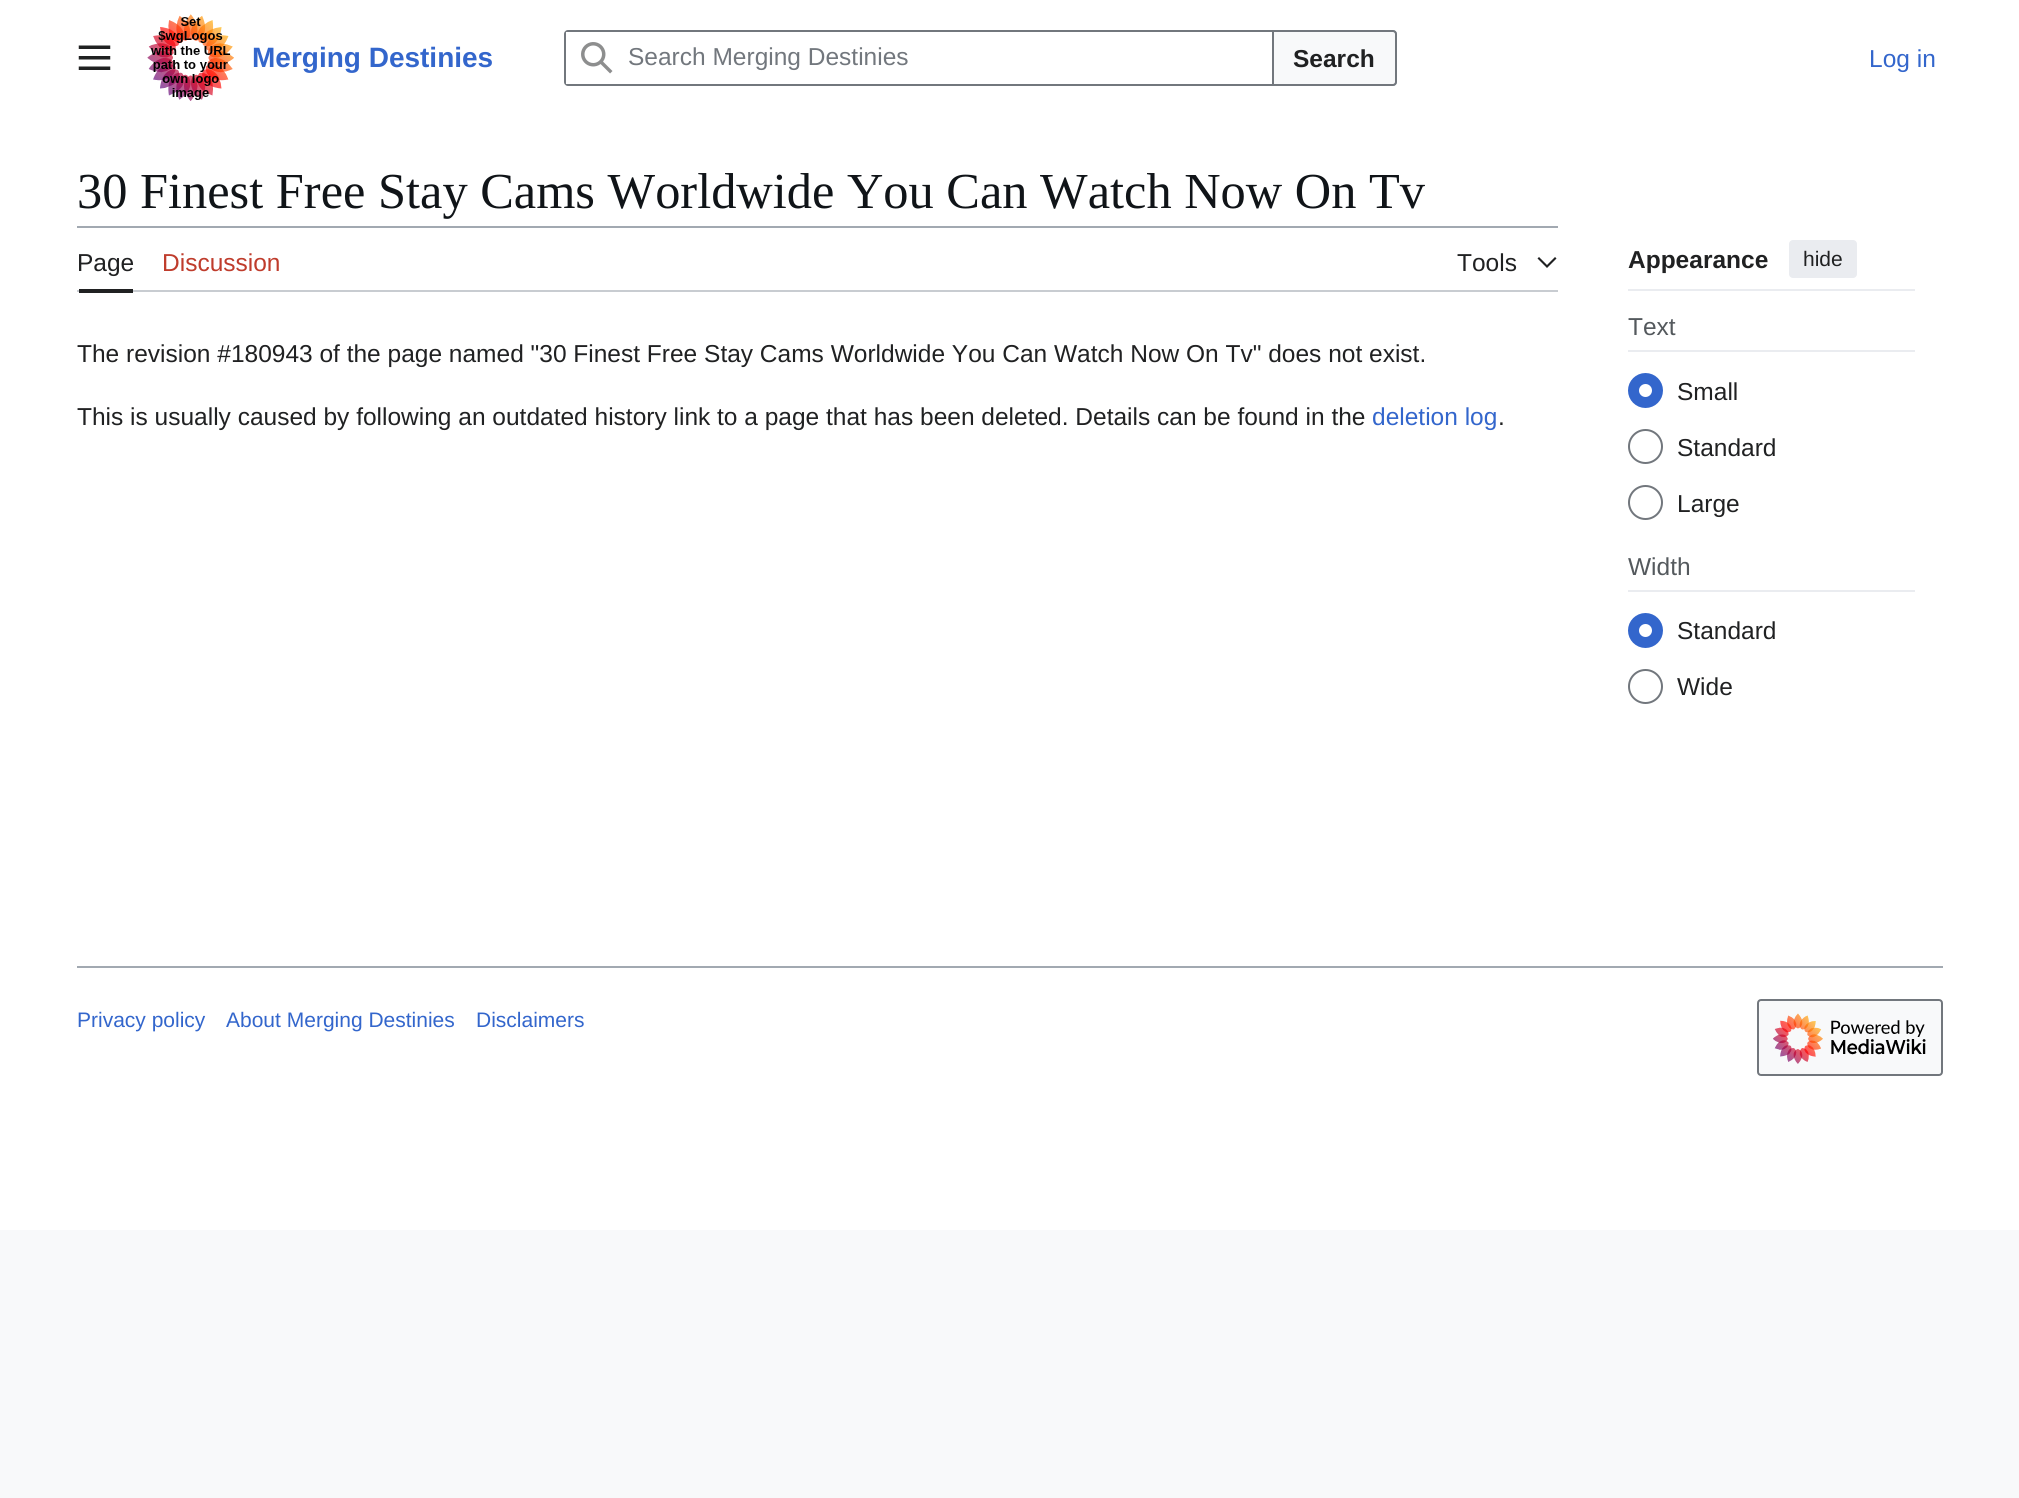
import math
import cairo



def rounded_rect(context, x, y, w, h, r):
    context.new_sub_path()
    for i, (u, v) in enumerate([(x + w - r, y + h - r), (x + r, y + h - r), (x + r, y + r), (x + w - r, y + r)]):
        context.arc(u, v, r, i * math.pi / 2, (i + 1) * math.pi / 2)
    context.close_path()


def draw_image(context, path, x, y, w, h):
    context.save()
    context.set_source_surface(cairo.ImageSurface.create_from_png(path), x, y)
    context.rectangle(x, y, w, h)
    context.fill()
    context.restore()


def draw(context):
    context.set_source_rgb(248 / 255, 249 / 255, 250 / 255)
    context.paint()
    context.set_source_rgb(1, 1, 1)
    context.rectangle(0, 0, 2019, 1230)
    context.fill()
    draw_image(context, "images/1.png", 78, 45, 33, 25)
    draw_image(context, "images/2.png", 147, 14, 87, 87)
    rounded_rect(context, 565, 31, 831, 54, 3)
    context.set_source_rgb(162 / 255, 169 / 255, 177 / 255)
    context.stroke()
    context.set_source_rgb(248 / 255, 249 / 255, 250 / 255)
    context.new_path()
    context.move_to(1273, 31)
    context.line_to(1393, 31)
    context.curve_to(1394.5, 31, 1396, 32.5, 1396, 34)
    context.line_to(1396, 82)
    context.curve_to(1396, 83.5, 1394.5, 85, 1393, 85)
    context.line_to(1273, 85)
    context.close_path()
    context.fill_preserve()
    context.set_source_rgb(114 / 255, 119 / 255, 125 / 255)
    context.stroke()
    context.set_source_rgb(1, 1, 1)
    context.new_path()
    context.move_to(568, 30)
    context.line_to(1274, 30)
    context.line_to(1274, 86)
    context.line_to(568, 86)
    context.curve_to(566, 86, 564, 84, 564, 82)
    context.line_to(564, 34)
    context.curve_to(564, 32, 566, 30, 568, 30)
    context.close_path()
    context.fill()
    context.set_source_rgb(114 / 255, 119 / 255, 125 / 255)
    context.set_fill_rule(cairo.FillRule.EVEN_ODD)
    context.new_path()
    context.move_to(568, 30)
    context.curve_to(566, 30, 564, 32, 564, 34)
    context.line_to(564, 82)
    context.curve_to(564, 84, 566, 86, 568, 86)
    context.line_to(1274, 86)
    context.line_to(1274, 30)
    context.close_path()
    context.move_to(566, 32)
    context.line_to(566, 84)
    context.line_to(1272, 84)
    context.line_to(1272, 32)
    context.close_path()
    context.fill()
    draw_image(context, "images/3.png", 581, 42, 32, 32)
    context.set_source_rgb(162 / 255, 169 / 255, 177 / 255)
    context.rectangle(77, 226, 1481, 2)
    context.fill()
    context.set_source_rgb(200 / 255, 204 / 255, 209 / 255)
    context.set_fill_rule(cairo.FillRule.WINDING)
    context.new_path()
    context.move_to(77, 290)
    context.line_to(77, 292)
    context.line_to(1558, 292)
    context.line_to(1558, 229)
    context.line_to(1558, 290)
    context.close_path()
    context.fill()
    context.set_source_rgb(32 / 255, 33 / 255, 34 / 255)
    context.rectangle(79, 289, 54, 4)
    context.fill()
    context.new_path()
    context.move_to(1555, 257)
    context.line_to(1547, 265)
    context.line_to(1539, 257)
    context.line_to(1537.5, 258.5)
    context.line_to(1547, 268)
    context.line_to(1556.5, 258.5)
    context.close_path()
    context.fill()
    context.set_source_rgb(234 / 255, 236 / 255, 240 / 255)
    context.rectangle(1628, 289, 287, 2)
    context.fill()
    rounded_rect(context, 1789, 240, 68, 38, 4)
    context.fill()
    context.rectangle(1628, 350, 287, 2)
    context.fill()
    context.arc(1645.5, 390.5, 12, 0, 2 * math.pi)
    context.set_source_rgb(51 / 255, 102 / 255, 204 / 255)
    context.set_line_width(11)
    context.stroke()
    context.arc(1645.5, 446.5, 16.5, 0, 2 * math.pi)
    context.set_source_rgb(114 / 255, 119 / 255, 125 / 255)
    context.set_line_width(2)
    context.stroke()
    context.arc(1645.5, 502.5, 16.5, 0, 2 * math.pi)
    context.stroke()
    context.set_source_rgb(234 / 255, 236 / 255, 240 / 255)
    context.rectangle(1628, 590, 287, 2)
    context.fill()
    context.arc(1645.5, 630.5, 12, 0, 2 * math.pi)
    context.set_source_rgb(51 / 255, 102 / 255, 204 / 255)
    context.set_line_width(11)
    context.stroke()
    context.arc(1645.5, 686.5, 16.5, 0, 2 * math.pi)
    context.set_source_rgb(114 / 255, 119 / 255, 125 / 255)
    context.set_line_width(2)
    context.stroke()
    context.set_source_rgb(162 / 255, 169 / 255, 177 / 255)
    context.rectangle(77, 966, 1866, 2)
    context.fill()
    context.set_source_rgb(248 / 255, 249 / 255, 250 / 255)
    rounded_rect(context, 1758, 1000, 184, 75, 3)
    context.fill_preserve()
    context.set_source_rgb(114 / 255, 119 / 255, 125 / 255)
    context.stroke()
    draw_image(context, "images/4.png", 1773, 1013, 153, 51)
    context.select_font_face("Liberation Sans", cairo.FontSlant.NORMAL, cairo.FontWeight.BOLD)
    context.set_font_size(28)
    context.set_source_rgb(51 / 255, 102 / 255, 204 / 255)
    context.move_to(252, 67)
    context.show_text("Merging Destinies")
    context.select_font_face("Liberation Sans")
    context.set_font_size(24.5)
    context.set_source_rgb(114 / 255, 119 / 255, 125 / 255)
    context.move_to(628, 65)
    context.show_text("Search Merging Destinies")
    context.select_font_face("Liberation Sans", cairo.FontSlant.NORMAL, cairo.FontWeight.BOLD)
    context.set_source_rgb(32 / 255, 33 / 255, 34 / 255)
    context.move_to(1293, 67)
    context.show_text("Search")
    context.select_font_face("Liberation Sans")
    context.set_source_rgb(51 / 255, 102 / 255, 204 / 255)
    context.move_to(1869, 67)
    context.show_text("Log in")
    context.select_font_face("Liberation Serif")
    context.set_font_size(50.4)
    context.set_source_rgb(16 / 255, 20 / 255, 24 / 255)
    context.move_to(77, 208)
    context.show_text("30 Finest Free Stay Cams Worldwide You Can Watch Now On Tv")
    context.select_font_face("Liberation Sans")
    context.set_font_size(24.5)
    context.set_source_rgb(32 / 255, 33 / 255, 34 / 255)
    context.move_to(77, 271)
    context.show_text("Page")
    context.set_source_rgb(191 / 255, 60 / 255, 44 / 255)
    context.move_to(162, 271)
    context.show_text("Discussion")
    context.set_source_rgb(32 / 255, 33 / 255, 34 / 255)
    context.move_to(1457, 271)
    context.show_text("Tools")
    context.select_font_face("Liberation Sans", cairo.FontSlant.NORMAL, cairo.FontWeight.BOLD)
    context.move_to(1628, 268)
    context.show_text("Appearance")
    context.select_font_face("Liberation Sans")
    context.set_font_size(21)
    context.move_to(1803, 266)
    context.show_text("hide")
    context.set_font_size(24.5)
    context.set_source_rgb(84 / 255, 89 / 255, 93 / 255)
    context.move_to(1628, 335)
    context.show_text("Text")
    context.set_source_rgb(32 / 255, 33 / 255, 34 / 255)
    context.move_to(1677, 400)
    context.show_text("Small")
    context.move_to(1677, 456)
    context.show_text("Standard")
    context.move_to(1677, 512)
    context.show_text("Large")
    context.set_source_rgb(84 / 255, 89 / 255, 93 / 255)
    context.move_to(1628, 575)
    context.show_text("Width")
    context.set_source_rgb(32 / 255, 33 / 255, 34 / 255)
    context.move_to(1677, 639)
    context.show_text("Standard")
    context.move_to(1677, 695)
    context.show_text("Wide")
    context.move_to(77, 362)
    context.show_text("The revision #180943 of the page named \"30 Finest Free Stay Cams Worldwide You Can Watch Now On Tv\" does not exist.")
    context.move_to(77, 425)
    context.show_text("This is usually caused by following an outdated history link to a page that has been deleted. Details can be found in the")
    context.set_source_rgb(51 / 255, 102 / 255, 204 / 255)
    context.move_to(1372, 425)
    context.show_text("deletion log")
    context.set_source_rgb(32 / 255, 33 / 255, 34 / 255)
    context.move_to(1498, 425)
    context.show_text(".")
    context.set_font_size(21)
    context.set_source_rgb(51 / 255, 102 / 255, 204 / 255)
    context.move_to(77, 1027)
    context.show_text("Privacy policy")
    context.move_to(226, 1027)
    context.show_text("About Merging Destinies")
    context.move_to(476, 1027)
    context.show_text("Disclaimers")


surface = cairo.ImageSurface(cairo.Format.RGB24, 2019, 1498)
context = cairo.Context(surface)
options = cairo.FontOptions()
options.set_hint_metrics(cairo.HintMetrics.OFF)
options.set_hint_style(cairo.HintStyle.NONE)
context.set_font_options(options)
context.set_miter_limit(4)
draw(context)
surface.write_to_png("out.png")
